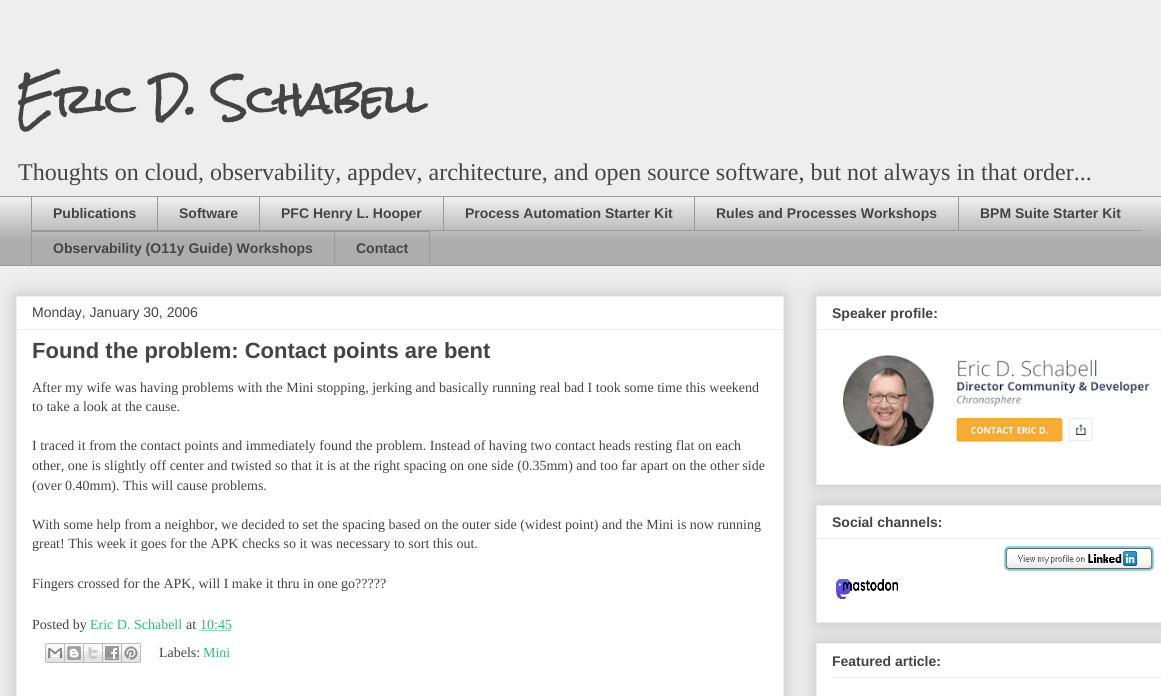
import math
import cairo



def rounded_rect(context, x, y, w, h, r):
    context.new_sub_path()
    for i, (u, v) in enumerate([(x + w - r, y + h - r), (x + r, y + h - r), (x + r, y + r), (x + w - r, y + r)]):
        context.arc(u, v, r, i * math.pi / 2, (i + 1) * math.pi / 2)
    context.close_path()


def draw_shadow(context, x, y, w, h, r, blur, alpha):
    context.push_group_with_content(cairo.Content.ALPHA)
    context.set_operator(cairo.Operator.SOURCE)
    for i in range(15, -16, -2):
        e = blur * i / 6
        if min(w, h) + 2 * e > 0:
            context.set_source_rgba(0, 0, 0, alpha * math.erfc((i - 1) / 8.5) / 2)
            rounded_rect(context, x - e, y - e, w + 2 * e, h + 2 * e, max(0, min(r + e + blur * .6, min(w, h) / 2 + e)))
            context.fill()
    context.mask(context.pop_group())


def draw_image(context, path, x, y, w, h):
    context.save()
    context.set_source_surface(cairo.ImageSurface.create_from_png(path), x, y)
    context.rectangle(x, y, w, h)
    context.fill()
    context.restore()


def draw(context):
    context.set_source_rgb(238 / 255, 238 / 255, 238 / 255)
    context.paint()
    draw_image(context, "images/1.png", 0, 202, 1161, 63)
    context.set_source_rgb(153 / 255, 153 / 255, 153 / 255)
    context.rectangle(0, 196, 1161, 1)
    context.fill()
    context.rectangle(31, 230, 1111, 1)
    context.fill()
    context.rectangle(31, 196, 1, 35)
    context.fill()
    context.rectangle(157, 196, 1, 35)
    context.fill()
    context.rectangle(259, 196, 1, 35)
    context.fill()
    context.rectangle(443, 196, 1, 35)
    context.fill()
    context.rectangle(694, 196, 1, 35)
    context.fill()
    context.rectangle(958, 196, 1, 35)
    context.fill()
    context.rectangle(31, 231, 303, 1)
    context.fill()
    context.rectangle(31, 231, 1, 35)
    context.fill()
    context.rectangle(334.5, 231.5, 95, 34)
    context.set_line_width(1)
    context.stroke()
    context.rectangle(0, 265, 1161, 1)
    context.fill()
    context.set_source_rgb(0, 0, 0)
    draw_shadow(context, 16, 296, 768, 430, 0, 10, 0.2)
    context.set_source_rgb(1, 1, 1)
    context.rectangle(16.5, 296.5, 767, 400)
    context.fill_preserve()
    context.set_source_rgb(238 / 255, 238 / 255, 238 / 255)
    context.stroke()
    context.rectangle(17, 329, 766, 1)
    context.fill()
    context.new_path()
    context.move_to(199.5, 630.5)
    context.line_to(231.5, 630.5)
    context.set_source_rgb(47 / 255, 191 / 255, 113 / 255)
    context.set_dash([1, 1])
    context.stroke()
    draw_image(context, "images/2.png", 45, 643, 20, 20)
    draw_image(context, "images/3.png", 65, 643, 19, 20)
    draw_image(context, "images/4.png", 84, 643, 19, 20)
    draw_image(context, "images/5.png", 103, 643, 19, 20)
    draw_image(context, "images/6.png", 122, 643, 19, 20)
    context.set_source_rgb(0, 0, 0)
    draw_shadow(context, 816, 296, 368, 189, 0, 10, 0.2)
    context.set_source_rgb(1, 1, 1)
    context.rectangle(816.5, 296.5, 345, 188)
    context.fill_preserve()
    context.set_source_rgb(238 / 255, 238 / 255, 238 / 255)
    context.set_dash([])
    context.stroke()
    context.rectangle(817, 329, 344, 1)
    context.fill()
    draw_image(context, "images/7.png", 843, 355, 307, 92)
    context.set_source_rgb(0, 0, 0)
    draw_shadow(context, 816, 505, 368, 118, 0, 10, 0.2)
    context.set_source_rgb(1, 1, 1)
    context.rectangle(816.5, 505.5, 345, 117)
    context.fill_preserve()
    context.set_source_rgb(238 / 255, 238 / 255, 238 / 255)
    context.stroke()
    context.rectangle(817, 538, 344, 1)
    context.fill()
    draw_image(context, "images/8.png", 1004, 546, 150, 25)
    draw_image(context, "images/9.png", 836, 579, 62, 21)
    context.set_source_rgb(0, 0, 0)
    draw_shadow(context, 816, 643, 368, 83, 0, 10, 0.2)
    context.set_source_rgb(1, 1, 1)
    context.rectangle(816.5, 643.5, 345, 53)
    context.fill_preserve()
    context.set_source_rgb(238 / 255, 238 / 255, 238 / 255)
    context.stroke()
    context.rectangle(832, 677, 329, 1)
    context.fill()
    context.select_font_face("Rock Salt", cairo.FontSlant.NORMAL, cairo.FontWeight.BOLD)
    context.set_font_size(40)
    context.set_source_rgb(68 / 255, 68 / 255, 68 / 255)
    context.move_to(16, 115)
    context.show_text("Eric D. Schabell")
    context.select_font_face("Liberation Serif")
    context.set_font_size(24)
    context.move_to(18, 180)
    context.show_text("Thoughts on cloud, observability, appdev, architecture, and open source software, but not always in that order...")
    context.select_font_face("Liberation Sans", cairo.FontSlant.NORMAL, cairo.FontWeight.BOLD)
    context.set_font_size(14)
    context.move_to(53, 218)
    context.show_text("Publications")
    context.move_to(179, 218)
    context.show_text("Software")
    context.move_to(281, 218)
    context.show_text("PFC Henry L. Hooper")
    context.move_to(465, 218)
    context.show_text("Process Automation Starter Kit")
    context.move_to(716, 218)
    context.show_text("Rules and Processes Workshops")
    context.move_to(980, 218)
    context.show_text("BPM Suite Starter Kit")
    context.move_to(53, 253)
    context.show_text("Observability (O11y Guide) Workshops")
    context.move_to(356, 253)
    context.show_text("Contact")
    context.select_font_face("Liberation Sans")
    context.move_to(32, 317)
    context.show_text("Monday, January 30, 2006")
    context.select_font_face("Liberation Sans", cairo.FontSlant.NORMAL, cairo.FontWeight.BOLD)
    context.set_font_size(22)
    context.move_to(32, 358)
    context.show_text("Found the problem: Contact points are bent")
    context.select_font_face("Liberation Serif")
    context.set_font_size(14)
    context.move_to(32, 392)
    context.show_text("After my wife was having problems with the Mini stopping, jerking and basically running real bad I took some time this weekend")
    context.move_to(32, 411)
    context.show_text("to take a look at the cause.")
    context.move_to(32, 450)
    context.show_text("I traced it from the contact points and immediately found the problem. Instead of having two contact heads resting flat on each")
    context.move_to(32, 470)
    context.show_text("other, one is slightly off center and twisted so that it is at the right spacing on one side (0.35mm) and too far apart on the other side")
    context.move_to(32, 490)
    context.show_text("(over 0.40mm). This will cause problems.")
    context.move_to(32, 529)
    context.show_text("With some help from a neighbor, we decided to set the spacing based on the outer side (widest point) and the Mini is now running")
    context.move_to(32, 548)
    context.show_text("great! This week it goes for the APK checks so it was necessary to sort this out.")
    context.move_to(32, 588)
    context.show_text("Fingers crossed for the APK, will I make it thru in one go?????")
    context.move_to(32, 629)
    context.show_text("Posted by")
    context.set_source_rgb(47 / 255, 191 / 255, 113 / 255)
    context.move_to(90, 629)
    context.show_text("Eric D. Schabell")
    context.set_source_rgb(68 / 255, 68 / 255, 68 / 255)
    context.move_to(186, 629)
    context.show_text("at")
    context.set_source_rgb(47 / 255, 191 / 255, 113 / 255)
    context.move_to(200, 629)
    context.show_text("10:45")
    context.set_source_rgb(68 / 255, 68 / 255, 68 / 255)
    context.move_to(159, 657)
    context.show_text("Labels:")
    context.set_source_rgb(47 / 255, 191 / 255, 113 / 255)
    context.move_to(203, 657)
    context.show_text("Mini")
    context.select_font_face("Liberation Sans", cairo.FontSlant.NORMAL, cairo.FontWeight.BOLD)
    context.set_source_rgb(68 / 255, 68 / 255, 68 / 255)
    context.move_to(832, 318)
    context.show_text("Speaker profile:")
    context.move_to(832, 527)
    context.show_text("Social channels:")
    context.move_to(832, 666)
    context.show_text("Featured article:")


surface = cairo.ImageSurface(cairo.Format.RGB24, 1161, 696)
context = cairo.Context(surface)
options = cairo.FontOptions()
options.set_hint_metrics(cairo.HintMetrics.OFF)
options.set_hint_style(cairo.HintStyle.NONE)
context.set_font_options(options)
context.set_miter_limit(4)
draw(context)
surface.write_to_png("out.png")
